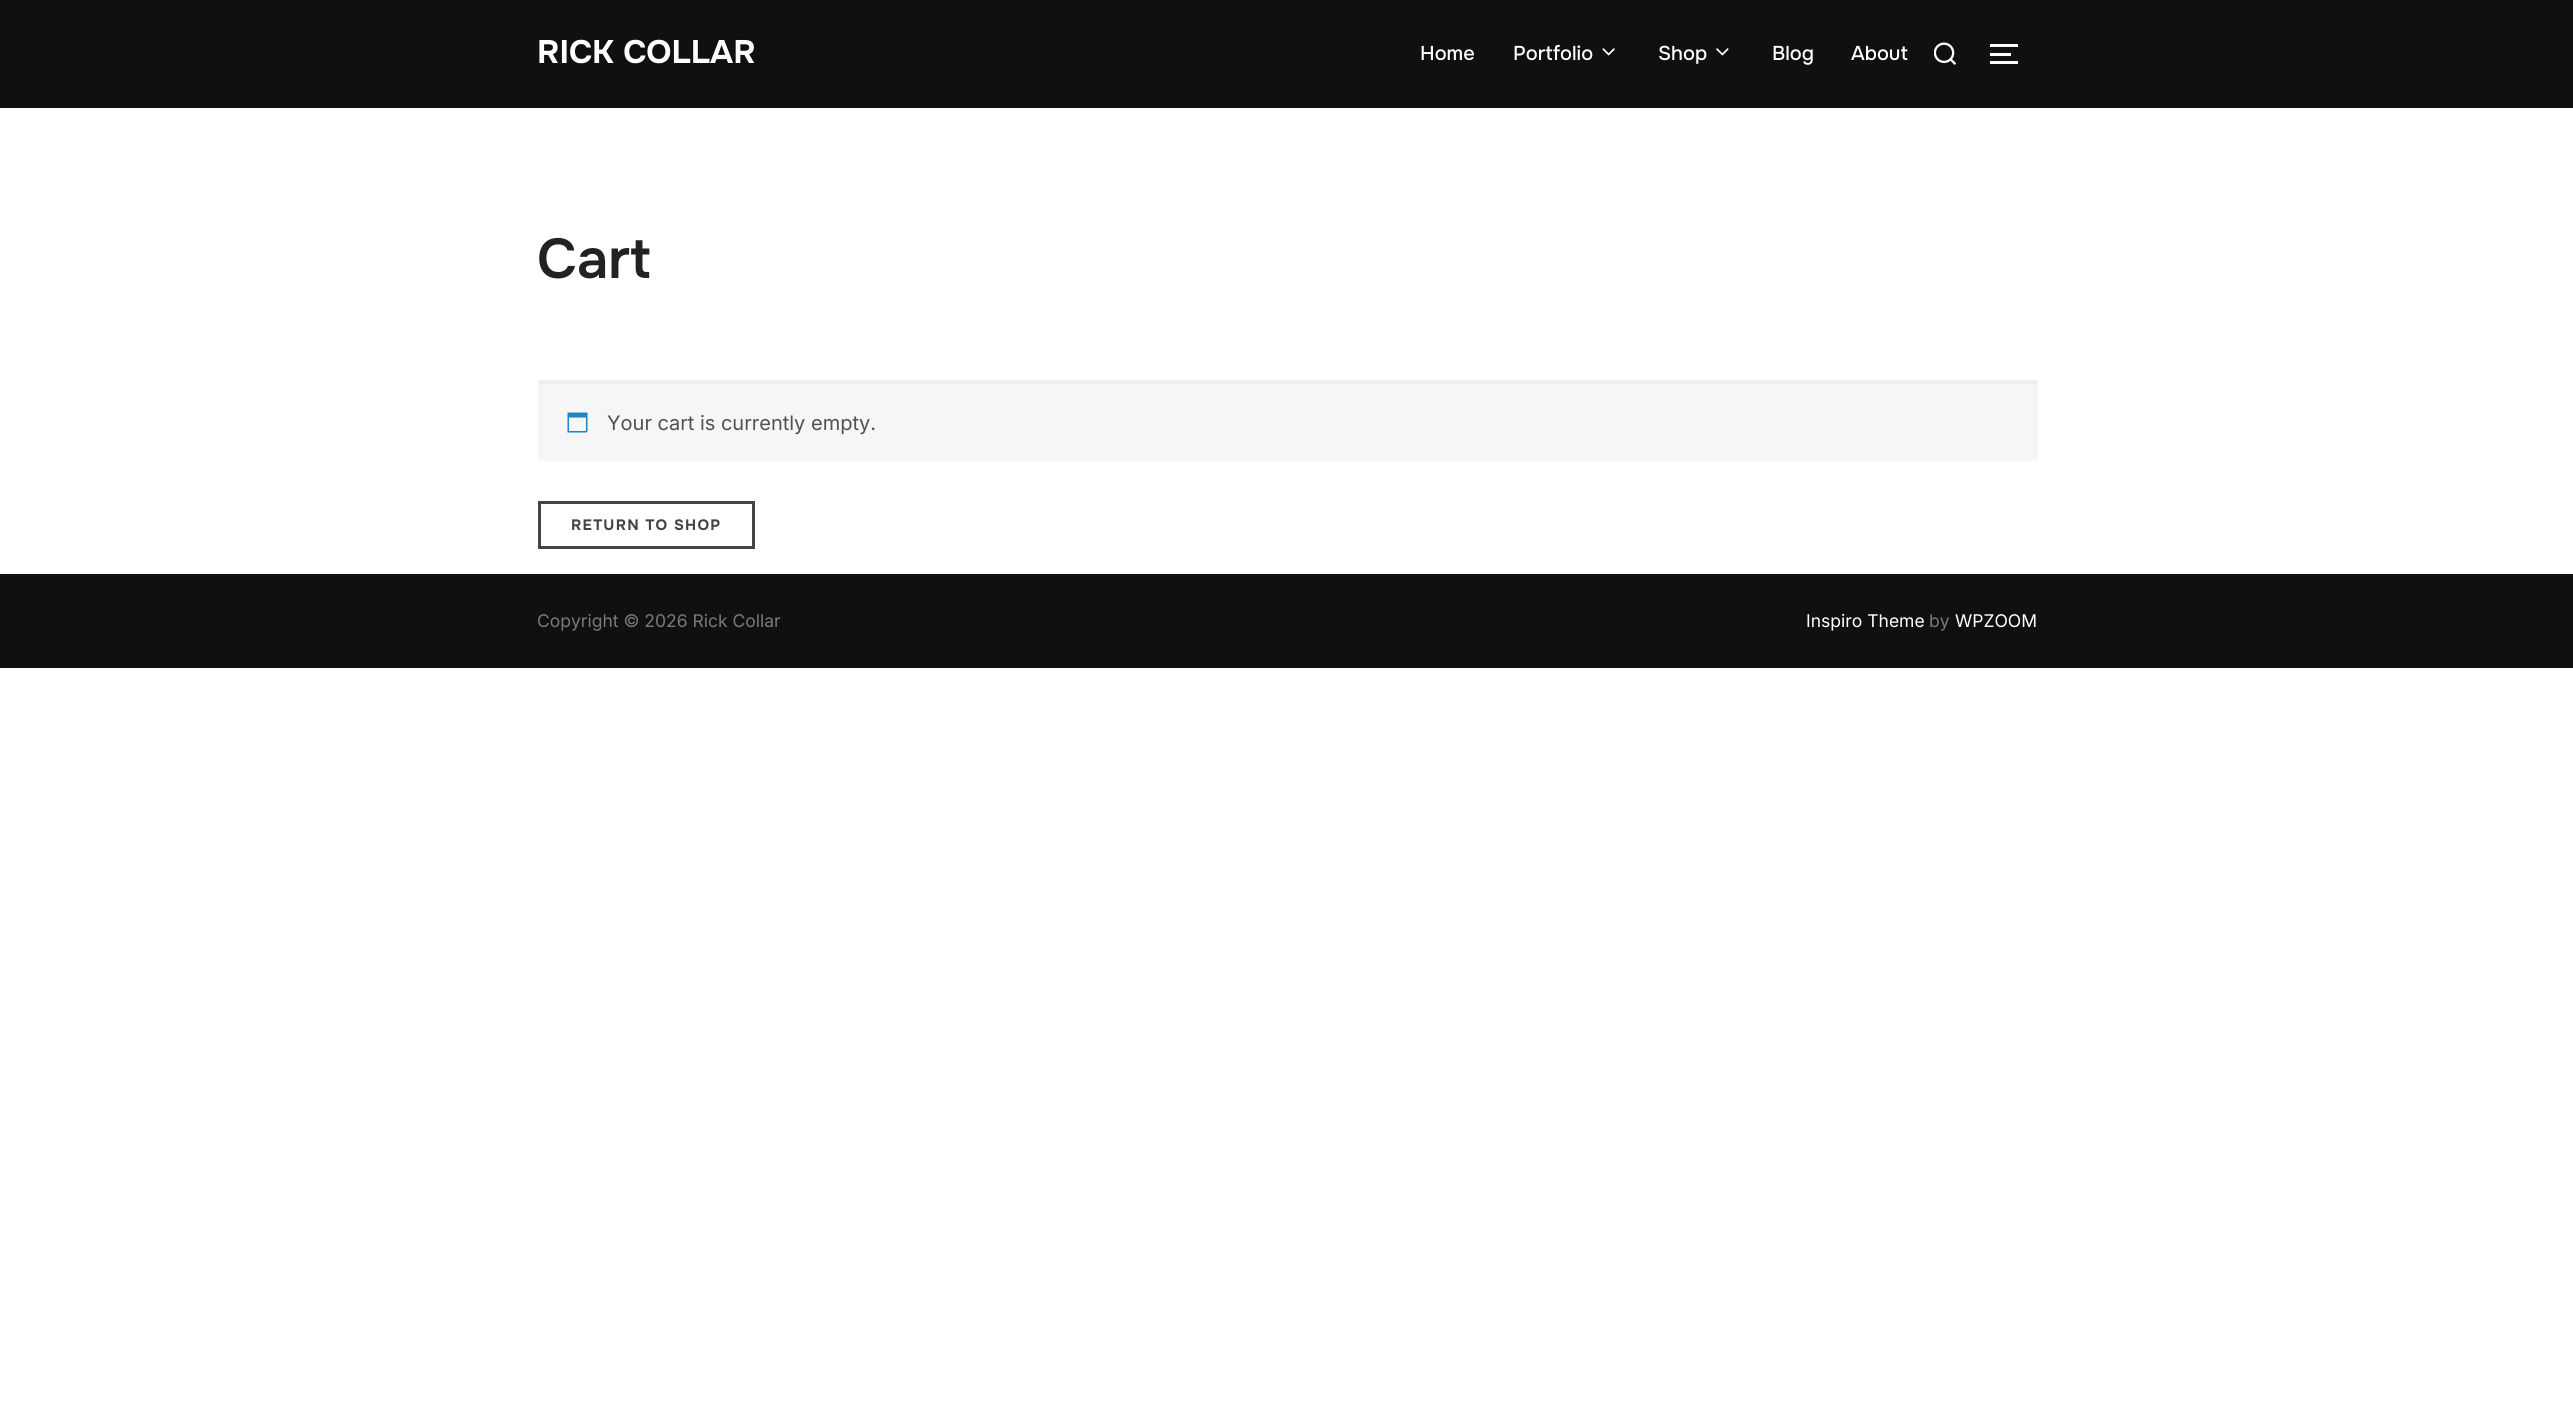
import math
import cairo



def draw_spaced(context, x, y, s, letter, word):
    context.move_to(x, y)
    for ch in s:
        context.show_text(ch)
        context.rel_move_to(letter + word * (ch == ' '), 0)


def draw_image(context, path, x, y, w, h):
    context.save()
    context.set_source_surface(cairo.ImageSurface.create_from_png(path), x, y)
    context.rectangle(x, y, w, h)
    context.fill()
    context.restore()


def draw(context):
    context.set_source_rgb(1, 1, 1)
    context.paint()
    context.set_source_rgb(16 / 255, 16 / 255, 16 / 255)
    context.rectangle(0, 0, 2573, 108)
    context.fill()
    draw_image(context, "images/1.png", 1602, 48, 13, 8)
    draw_image(context, "images/2.png", 1716, 48, 13, 8)
    draw_image(context, "images/3.png", 1934, 42, 22, 23)
    context.set_source_rgb(1, 1, 1)
    context.rectangle(1990, 44, 28, 3)
    context.fill()
    context.rectangle(1990, 53, 21, 3)
    context.fill()
    context.rectangle(1990, 61, 28, 3)
    context.fill()
    context.set_source_rgb(246 / 255, 245 / 255, 248 / 255)
    context.rectangle(538, 384, 1500, 77)
    context.fill()
    context.set_source_rgb(238 / 255, 238 / 255, 238 / 255)
    context.rectangle(538, 380, 1500, 4)
    context.fill()
    draw_image(context, "images/4.png", 567, 412, 21, 21)
    context.rectangle(539.5, 502.5, 214, 45)
    context.set_source_rgb(68 / 255, 68 / 255, 68 / 255)
    context.set_line_width(3)
    context.stroke()
    context.set_source_rgb(16 / 255, 16 / 255, 16 / 255)
    context.rectangle(0, 574, 2573, 94)
    context.fill()
    context.select_font_face("Onest", cairo.FontSlant.NORMAL, cairo.FontWeight.BOLD)
    context.set_font_size(32.5)
    context.set_source_rgb(1, 1, 1)
    context.move_to(537, 63)
    context.show_text("RICK COLLAR")
    context.select_font_face("Onest Medium")
    context.set_font_size(20)
    context.move_to(1420, 60)
    context.show_text("Home")
    context.move_to(1513, 60)
    context.show_text("Portfolio")
    context.move_to(1658, 60)
    context.show_text("Shop")
    context.move_to(1772, 60)
    context.show_text("Blog")
    context.move_to(1851, 60)
    context.show_text("About")
    context.select_font_face("Onest SemiBold")
    context.set_font_size(56)
    context.set_source_rgb(34 / 255, 34 / 255, 34 / 255)
    context.move_to(537, 278)
    context.show_text("Cart")
    context.select_font_face("Inter")
    context.set_font_size(20)
    context.set_source_rgb(81 / 255, 81 / 255, 81 / 255)
    context.move_to(607, 430)
    context.show_text("Your cart is currently empty.")
    context.select_font_face("Onest", cairo.FontSlant.NORMAL, cairo.FontWeight.BOLD)
    context.set_font_size(15)
    context.set_source_rgb(68 / 255, 68 / 255, 68 / 255)
    draw_spaced(context, 571, 530, "RETURN TO SHOP", 1.25, 0)
    context.select_font_face("Inter")
    context.set_font_size(17.5)
    context.set_source_rgb(120 / 255, 120 / 255, 127 / 255)
    context.move_to(537, 627)
    context.show_text("Copyright © 2026 Rick Collar")
    context.set_source_rgb(1, 1, 1)
    context.move_to(1806, 627)
    context.show_text("Inspiro Theme")
    context.set_source_rgb(120 / 255, 120 / 255, 127 / 255)
    context.move_to(1929, 627)
    context.show_text("by")
    context.set_source_rgb(1, 1, 1)
    context.move_to(1955, 627)
    context.show_text("WPZOOM")


surface = cairo.ImageSurface(cairo.Format.RGB24, 2573, 1428)
context = cairo.Context(surface)
options = cairo.FontOptions()
options.set_hint_metrics(cairo.HintMetrics.OFF)
options.set_hint_style(cairo.HintStyle.NONE)
context.set_font_options(options)
context.set_miter_limit(4)
draw(context)
surface.write_to_png("out.png")
